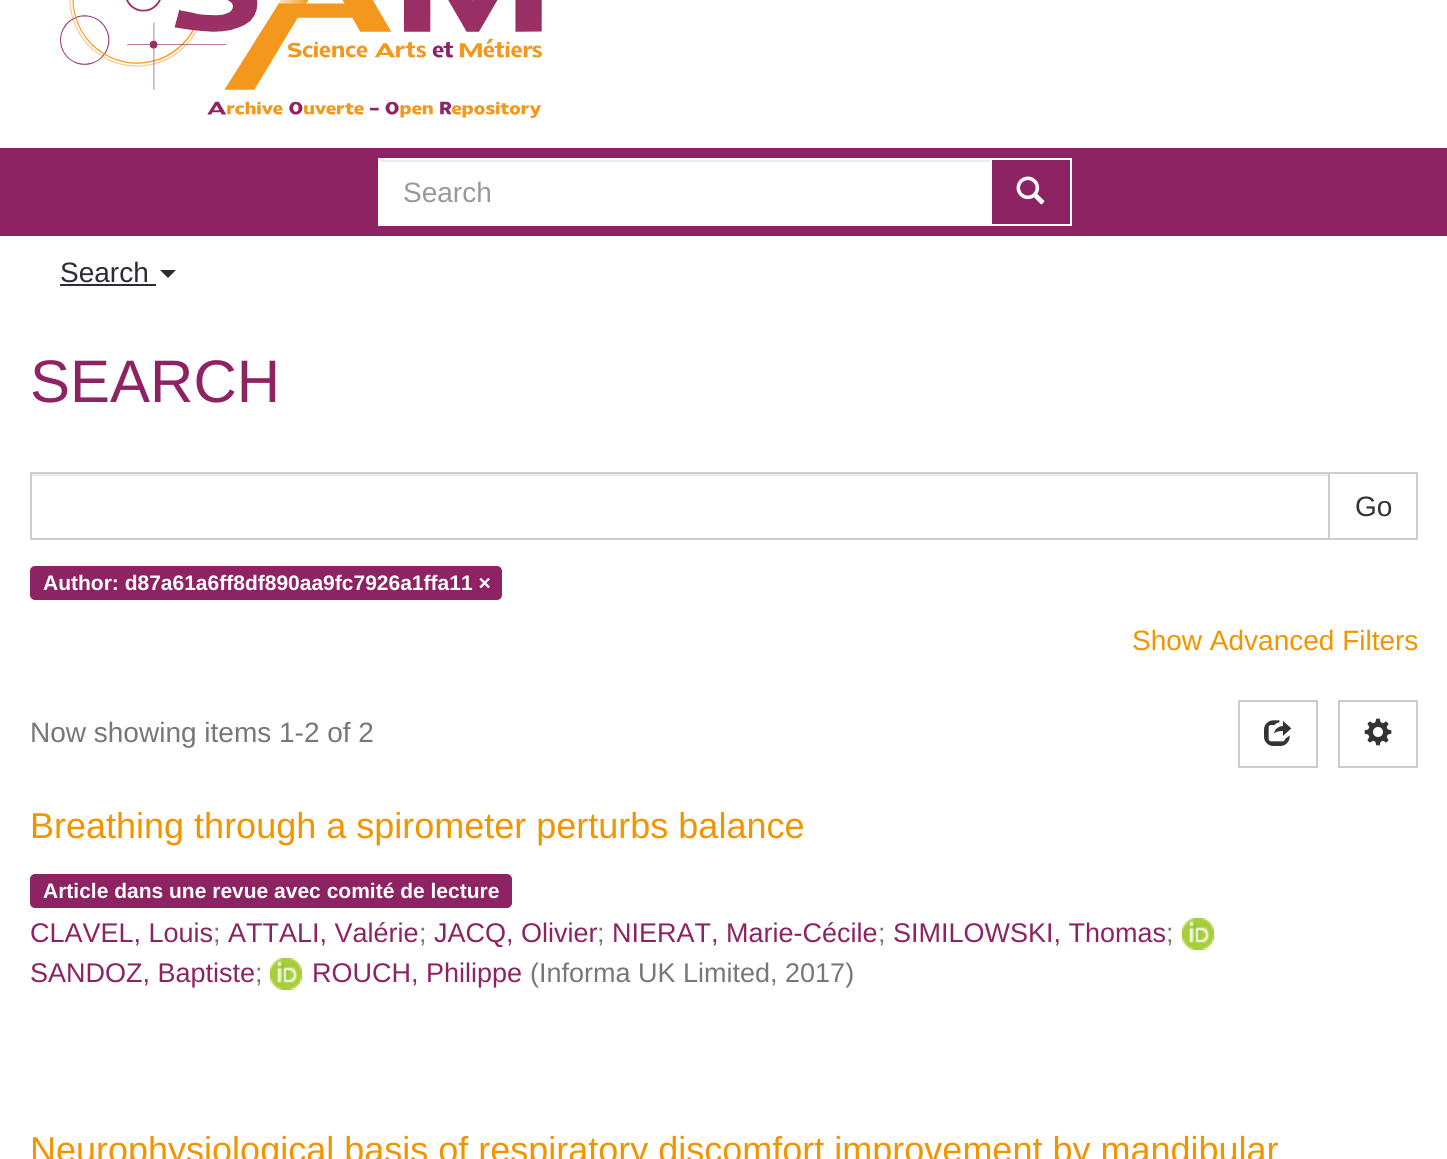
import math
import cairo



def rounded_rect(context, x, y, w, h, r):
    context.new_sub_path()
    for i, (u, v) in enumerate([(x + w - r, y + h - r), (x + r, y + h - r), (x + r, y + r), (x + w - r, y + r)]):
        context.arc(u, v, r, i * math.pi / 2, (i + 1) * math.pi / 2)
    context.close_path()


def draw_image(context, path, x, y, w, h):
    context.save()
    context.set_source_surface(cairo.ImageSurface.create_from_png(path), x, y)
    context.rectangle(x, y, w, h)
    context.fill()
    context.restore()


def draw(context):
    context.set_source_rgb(1, 1, 1)
    context.paint()
    draw_image(context, "images/1.png", 60, 0, 482, 118)
    context.set_source_rgb(141 / 255, 35 / 255, 99 / 255)
    context.rectangle(0, 148, 1447, 88)
    context.fill()
    context.set_source_rgb(1, 1, 1)
    context.rectangle(378, 158, 612, 68)
    context.fill()
    context.set_source_rgb(236 / 255, 236 / 255, 236 / 255)
    context.rectangle(380, 160, 610, 2)
    context.fill()
    context.rectangle(991, 159, 80, 66)
    context.set_source_rgb(1, 1, 1)
    context.stroke()
    draw_image(context, "images/2.png", 1016, 176, 29, 29)
    context.set_source_rgb(43 / 255, 45 / 255, 54 / 255)
    context.rectangle(60, 284, 96, 2)
    context.fill()
    context.new_path()
    context.move_to(160, 270)
    context.line_to(176, 270)
    context.line_to(168, 278)
    context.close_path()
    context.fill()
    context.set_source_rgb(236 / 255, 236 / 255, 236 / 255)
    context.rectangle(32, 474, 1296, 2)
    context.fill()
    context.rectangle(1329, 473, 88, 66)
    context.set_source_rgb(204 / 255, 204 / 255, 204 / 255)
    context.stroke()
    context.rectangle(31, 473, 1298, 66)
    context.stroke()
    context.set_source_rgb(141 / 255, 35 / 255, 99 / 255)
    rounded_rect(context, 30, 566, 472, 34, 5)
    context.fill()
    context.rectangle(1239, 701, 78, 66)
    context.set_source_rgb(204 / 255, 204 / 255, 204 / 255)
    context.stroke()
    draw_image(context, "images/3.png", 1264, 720, 28, 26)
    context.rectangle(1339, 701, 78, 66)
    context.stroke()
    draw_image(context, "images/4.png", 1364, 718, 28, 28)
    context.set_source_rgb(141 / 255, 35 / 255, 99 / 255)
    rounded_rect(context, 30, 874, 482, 34, 5)
    context.fill()
    draw_image(context, "images/5.png", 1182, 918, 32, 32)
    draw_image(context, "images/5.png", 270, 958, 32, 32)
    context.select_font_face("Liberation Sans")
    context.set_font_size(28)
    context.set_source_rgb(153 / 255, 153 / 255, 153 / 255)
    context.move_to(403, 202)
    context.show_text("Search")
    context.set_source_rgb(43 / 255, 45 / 255, 54 / 255)
    context.move_to(60, 282)
    context.show_text("Search")
    context.set_font_size(60)
    context.set_source_rgb(141 / 255, 35 / 255, 99 / 255)
    context.move_to(30, 402)
    context.show_text("SEARCH")
    context.set_font_size(28)
    context.set_source_rgb(51 / 255, 51 / 255, 51 / 255)
    context.move_to(1355, 516)
    context.show_text("Go")
    context.select_font_face("Liberation Sans", cairo.FontSlant.NORMAL, cairo.FontWeight.BOLD)
    context.set_font_size(21)
    context.set_source_rgb(1, 1, 1)
    context.move_to(43, 590)
    context.show_text("Author: d87a61a6ff8df890aa9fc7926a1ffa11 ×")
    context.select_font_face("Liberation Sans")
    context.set_font_size(28)
    context.set_source_rgb(242 / 255, 148 / 255, 0)
    context.move_to(1132, 650)
    context.show_text("Show Advanced Filters")
    context.set_source_rgb(119 / 255, 119 / 255, 119 / 255)
    context.move_to(30, 742)
    context.show_text("Now showing items 1-2 of 2")
    context.set_font_size(36)
    context.set_source_rgb(242 / 255, 148 / 255, 0)
    context.move_to(30, 838)
    context.show_text("Breathing through a spirometer perturbs balance")
    context.select_font_face("Liberation Sans", cairo.FontSlant.NORMAL, cairo.FontWeight.BOLD)
    context.set_font_size(21)
    context.set_source_rgb(1, 1, 1)
    context.move_to(43, 898)
    context.show_text("Article dans une revue avec comité de lecture")
    context.select_font_face("Liberation Sans")
    context.set_font_size(27)
    context.set_source_rgb(141 / 255, 35 / 255, 99 / 255)
    context.move_to(30, 942)
    context.show_text("CLAVEL, Louis")
    context.set_source_rgb(119 / 255, 119 / 255, 119 / 255)
    context.move_to(213, 942)
    context.show_text(";")
    context.set_source_rgb(141 / 255, 35 / 255, 99 / 255)
    context.move_to(228, 942)
    context.show_text("ATTALI, Valérie")
    context.set_source_rgb(119 / 255, 119 / 255, 119 / 255)
    context.move_to(419, 942)
    context.show_text(";")
    context.set_source_rgb(141 / 255, 35 / 255, 99 / 255)
    context.move_to(434, 942)
    context.show_text("JACQ, Olivier")
    context.set_source_rgb(119 / 255, 119 / 255, 119 / 255)
    context.move_to(597, 942)
    context.show_text(";")
    context.set_source_rgb(141 / 255, 35 / 255, 99 / 255)
    context.move_to(612, 942)
    context.show_text("NIERAT, Marie-Cécile")
    context.set_source_rgb(119 / 255, 119 / 255, 119 / 255)
    context.move_to(878, 942)
    context.show_text(";")
    context.set_source_rgb(141 / 255, 35 / 255, 99 / 255)
    context.move_to(893, 942)
    context.show_text("SIMILOWSKI, Thomas")
    context.set_source_rgb(119 / 255, 119 / 255, 119 / 255)
    context.move_to(1166, 942)
    context.show_text(";")
    context.set_source_rgb(141 / 255, 35 / 255, 99 / 255)
    context.move_to(30, 982)
    context.show_text("SANDOZ, Baptiste")
    context.set_source_rgb(119 / 255, 119 / 255, 119 / 255)
    context.move_to(255, 982)
    context.show_text(";")
    context.set_source_rgb(141 / 255, 35 / 255, 99 / 255)
    context.move_to(312, 982)
    context.show_text("ROUCH, Philippe")
    context.set_source_rgb(119 / 255, 119 / 255, 119 / 255)
    context.move_to(530, 982)
    context.show_text("(Informa UK Limited, 2017)")
    context.set_font_size(36)
    context.set_source_rgb(242 / 255, 148 / 255, 0)
    context.move_to(30, 1162)
    context.show_text("Neurophysiological basis of respiratory discomfort improvement by mandibular")


surface = cairo.ImageSurface(cairo.Format.RGB24, 1447, 1159)
context = cairo.Context(surface)
options = cairo.FontOptions()
options.set_hint_metrics(cairo.HintMetrics.OFF)
options.set_hint_style(cairo.HintStyle.NONE)
context.set_font_options(options)
context.set_miter_limit(4)
draw(context)
surface.write_to_png("out.png")
